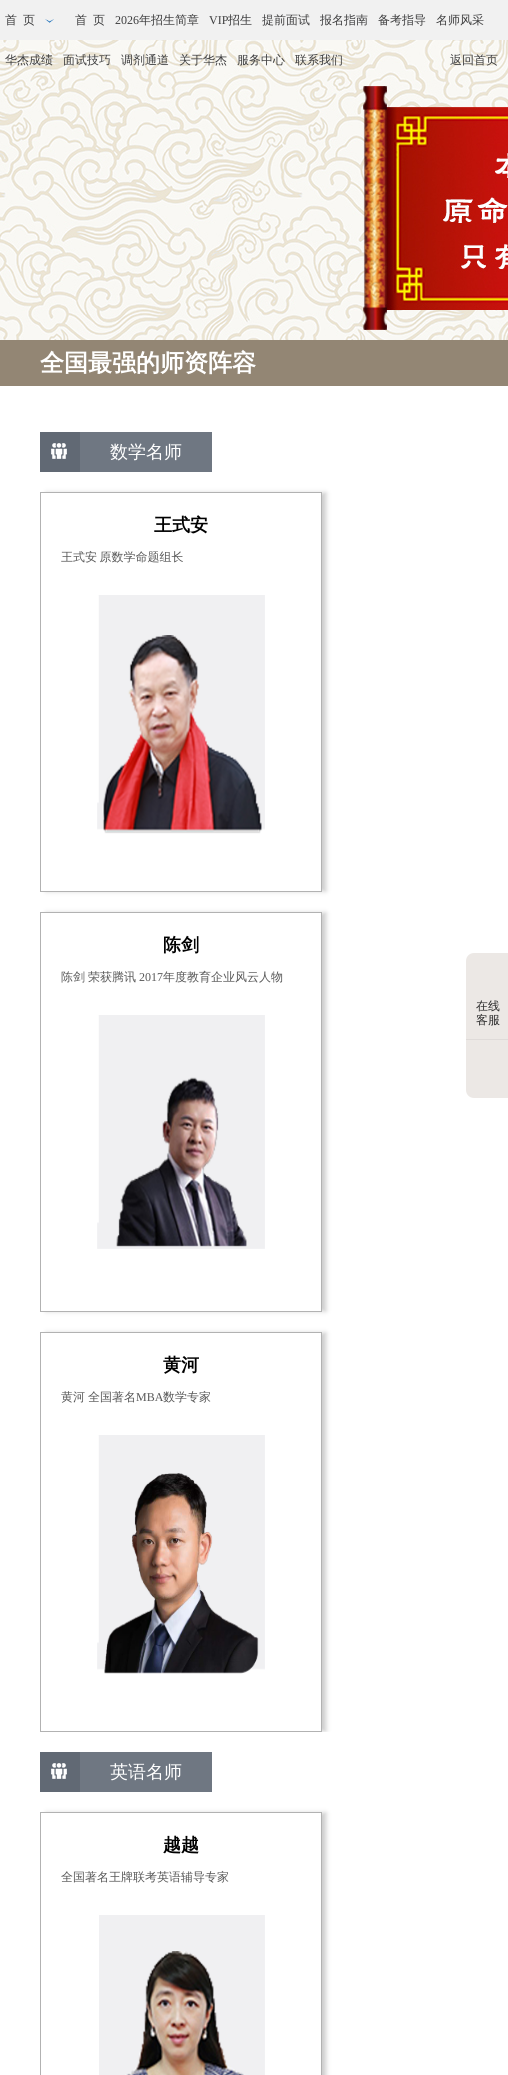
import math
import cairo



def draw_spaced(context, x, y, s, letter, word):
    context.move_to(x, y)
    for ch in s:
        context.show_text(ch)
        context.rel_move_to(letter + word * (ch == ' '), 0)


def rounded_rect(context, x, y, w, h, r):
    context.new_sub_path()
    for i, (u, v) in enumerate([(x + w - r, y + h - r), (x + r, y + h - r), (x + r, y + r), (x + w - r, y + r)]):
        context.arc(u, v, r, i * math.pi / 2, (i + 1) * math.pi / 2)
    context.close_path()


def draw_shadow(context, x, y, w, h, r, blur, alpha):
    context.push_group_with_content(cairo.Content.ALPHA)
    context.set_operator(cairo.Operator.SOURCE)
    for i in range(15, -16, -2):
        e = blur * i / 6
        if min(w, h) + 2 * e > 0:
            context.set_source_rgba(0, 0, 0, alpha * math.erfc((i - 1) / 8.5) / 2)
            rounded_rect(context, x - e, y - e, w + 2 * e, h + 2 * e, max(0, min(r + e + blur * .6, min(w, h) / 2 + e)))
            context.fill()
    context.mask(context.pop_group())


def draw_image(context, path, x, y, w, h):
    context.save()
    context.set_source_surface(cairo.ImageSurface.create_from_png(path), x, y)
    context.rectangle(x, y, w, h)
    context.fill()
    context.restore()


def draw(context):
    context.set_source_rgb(1, 1, 1)
    context.paint()
    context.set_source_rgb(241 / 255, 241 / 255, 241 / 255)
    context.rectangle(0, 0, 508, 40)
    context.fill()
    draw_image(context, "images/1.png", 45, 19, 9, 4)
    draw_image(context, "images/2.png", 0, 40, 508, 300)
    context.set_source_rgb(147 / 255, 134 / 255, 116 / 255)
    context.rectangle(0, 340, 508, 46)
    context.fill()
    context.set_source_rgb(97 / 255, 105 / 255, 116 / 255)
    context.rectangle(40, 432, 40, 40)
    context.fill()
    draw_image(context, "images/3.png", 51, 443, 16, 16)
    context.set_source_rgb(111 / 255, 119 / 255, 130 / 255)
    context.rectangle(80, 432, 132, 40)
    context.fill()
    context.save()
    context.set_fill_rule(cairo.FillRule.EVEN_ODD)
    context.new_path()
    context.move_to(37, 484)
    context.line_to(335, 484)
    context.line_to(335, 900)
    context.line_to(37, 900)
    context.close_path()
    context.move_to(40, 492)
    context.line_to(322, 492)
    context.line_to(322, 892)
    context.line_to(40, 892)
    context.close_path()
    context.clip()
    context.set_source_rgb(204 / 255, 204 / 255, 204 / 255)
    draw_shadow(context, 46, 493, 280, 398, 0, 2.5, 1)
    context.restore()
    context.rectangle(40.5, 492.5, 281, 399)
    context.set_source_rgb(178 / 255, 178 / 255, 178 / 255)
    context.set_line_width(1)
    context.stroke()
    draw_image(context, "images/4.png", 97, 595, 168, 239)
    context.save()
    context.set_fill_rule(cairo.FillRule.EVEN_ODD)
    context.new_path()
    context.move_to(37, 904)
    context.line_to(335, 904)
    context.line_to(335, 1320)
    context.line_to(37, 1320)
    context.close_path()
    context.move_to(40, 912)
    context.line_to(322, 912)
    context.line_to(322, 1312)
    context.line_to(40, 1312)
    context.close_path()
    context.clip()
    context.set_source_rgb(204 / 255, 204 / 255, 204 / 255)
    draw_shadow(context, 46, 913, 280, 398, 0, 2.5, 1)
    context.restore()
    context.rectangle(40.5, 912.5, 281, 399)
    context.stroke()
    draw_image(context, "images/5.png", 97, 1015, 168, 234)
    context.save()
    context.rectangle(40, 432, 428, 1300)
    context.clip()
    context.set_fill_rule(cairo.FillRule.EVEN_ODD)
    context.new_path()
    context.move_to(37, 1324)
    context.line_to(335, 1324)
    context.line_to(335, 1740)
    context.line_to(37, 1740)
    context.close_path()
    context.move_to(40, 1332)
    context.line_to(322, 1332)
    context.line_to(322, 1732)
    context.line_to(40, 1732)
    context.close_path()
    context.clip()
    context.set_source_rgb(204 / 255, 204 / 255, 204 / 255)
    draw_shadow(context, 46, 1333, 280, 398, 0, 2.5, 1)
    context.restore()
    context.rectangle(40.5, 1332.5, 281, 399)
    context.stroke()
    draw_image(context, "images/6.png", 97, 1435, 168, 239)
    context.set_source_rgb(97 / 255, 105 / 255, 116 / 255)
    context.rectangle(40, 1752, 40, 40)
    context.fill()
    draw_image(context, "images/3.png", 51, 1763, 16, 16)
    context.set_source_rgb(111 / 255, 119 / 255, 130 / 255)
    context.rectangle(80, 1752, 132, 40)
    context.fill()
    context.save()
    context.set_fill_rule(cairo.FillRule.EVEN_ODD)
    context.new_path()
    context.move_to(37, 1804)
    context.line_to(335, 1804)
    context.line_to(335, 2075)
    context.line_to(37, 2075)
    context.close_path()
    context.move_to(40, 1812)
    context.line_to(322, 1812)
    context.line_to(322, 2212)
    context.line_to(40, 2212)
    context.close_path()
    context.clip()
    context.set_source_rgb(204 / 255, 204 / 255, 204 / 255)
    draw_shadow(context, 46, 1813, 280, 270, 0, 2.5, 1)
    context.restore()
    context.rectangle(40.5, 1812.5, 281, 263)
    context.set_source_rgb(178 / 255, 178 / 255, 178 / 255)
    context.stroke()
    draw_image(context, "images/7.png", 99, 1915, 166, 160)
    context.set_source_rgb(236 / 255, 232 / 255, 229 / 255)
    context.new_path()
    context.move_to(474, 953)
    context.line_to(508, 953)
    context.line_to(508, 1040)
    context.line_to(466, 1040)
    context.line_to(466, 961)
    context.curve_to(466, 956.5, 469.5, 953, 474, 953)
    context.close_path()
    context.fill()
    context.set_source_rgb(223 / 255, 219 / 255, 217 / 255)
    context.rectangle(466, 1039, 42, 1)
    context.fill()
    context.set_source_rgb(236 / 255, 232 / 255, 229 / 255)
    context.new_path()
    context.move_to(466, 1040)
    context.line_to(508, 1040)
    context.line_to(508, 1098)
    context.line_to(474, 1098)
    context.curve_to(469.5, 1098, 466, 1094.5, 466, 1090)
    context.close_path()
    context.fill()
    context.select_font_face("WenQuanYi Zen Hei Medium")
    context.set_font_size(12)
    context.set_source_rgb(61 / 255, 61 / 255, 62 / 255)
    context.move_to(5, 24)
    context.show_text("首")
    context.move_to(23, 24)
    context.show_text("页")
    context.move_to(75, 24)
    context.show_text("首")
    context.move_to(93, 24)
    context.show_text("页")
    context.select_font_face("Liberation Serif")
    context.move_to(115, 24)
    context.show_text("2026")
    context.select_font_face("WenQuanYi Zen Hei Medium")
    context.move_to(139, 24)
    context.show_text("年招生简章")
    context.select_font_face("Liberation Serif")
    context.move_to(209, 24)
    context.show_text("VIP")
    context.select_font_face("WenQuanYi Zen Hei Medium")
    context.move_to(228, 24)
    context.show_text("招生")
    context.move_to(262, 24)
    context.show_text("提前面试")
    context.move_to(320, 24)
    context.show_text("报名指南")
    context.move_to(378, 24)
    context.show_text("备考指导")
    context.move_to(436, 24)
    context.show_text("名师风采")
    context.move_to(5, 64)
    context.show_text("华杰成绩")
    context.move_to(63, 64)
    context.show_text("面试技巧")
    context.move_to(121, 64)
    context.show_text("调剂通道")
    context.move_to(179, 64)
    context.show_text("关于华杰")
    context.move_to(237, 64)
    context.show_text("服务中心")
    context.move_to(295, 64)
    context.show_text("联系我们")
    context.move_to(450, 64)
    context.show_text("返回首页")
    context.select_font_face("WenQuanYi Zen Hei", cairo.FontSlant.NORMAL, cairo.FontWeight.BOLD)
    context.set_font_size(24)
    context.set_source_rgb(1, 1, 1)
    context.move_to(40, 371)
    context.show_text("全国最强的师资阵容")
    context.select_font_face("WenQuanYi Zen Hei Medium")
    context.set_font_size(18)
    context.move_to(110, 458)
    context.show_text("数学名师")
    context.select_font_face("WenQuanYi Zen Hei", cairo.FontSlant.NORMAL, cairo.FontWeight.BOLD)
    context.set_source_rgb(0, 0, 0)
    context.move_to(154, 531)
    context.show_text("王式安")
    context.select_font_face("WenQuanYi Zen Hei Medium")
    context.set_font_size(12)
    context.set_source_rgb(88 / 255, 88 / 255, 88 / 255)
    draw_spaced(context, 61, 561, "王式安 原数学命题组长", 0, -1)
    context.select_font_face("WenQuanYi Zen Hei", cairo.FontSlant.NORMAL, cairo.FontWeight.BOLD)
    context.set_font_size(18)
    context.set_source_rgb(0, 0, 0)
    context.move_to(163, 951)
    context.show_text("陈剑")
    context.select_font_face("WenQuanYi Zen Hei Medium")
    context.set_font_size(12)
    context.set_source_rgb(88 / 255, 88 / 255, 88 / 255)
    context.move_to(61, 981)
    context.show_text("陈剑")
    context.move_to(88, 981)
    context.show_text("荣获腾讯")
    context.select_font_face("Liberation Serif")
    context.move_to(139, 981)
    context.show_text("2017")
    context.select_font_face("WenQuanYi Zen Hei Medium")
    context.move_to(163, 981)
    context.show_text("年度教育企业风云人物")
    context.select_font_face("WenQuanYi Zen Hei", cairo.FontSlant.NORMAL, cairo.FontWeight.BOLD)
    context.set_font_size(18)
    context.set_source_rgb(0, 0, 0)
    context.move_to(163, 1371)
    context.show_text("黄河")
    context.select_font_face("WenQuanYi Zen Hei Medium")
    context.set_font_size(12)
    context.set_source_rgb(88 / 255, 88 / 255, 88 / 255)
    context.move_to(61, 1401)
    context.show_text("黄河")
    context.move_to(88, 1401)
    context.show_text("全国著名")
    context.select_font_face("Liberation Serif")
    context.move_to(136, 1401)
    context.show_text("MBA")
    context.select_font_face("WenQuanYi Zen Hei Medium")
    context.move_to(163, 1401)
    context.show_text("数学专家")
    context.set_font_size(18)
    context.set_source_rgb(1, 1, 1)
    context.move_to(110, 1778)
    context.show_text("英语名师")
    context.select_font_face("WenQuanYi Zen Hei", cairo.FontSlant.NORMAL, cairo.FontWeight.BOLD)
    context.set_source_rgb(0, 0, 0)
    context.move_to(163, 1851)
    context.show_text("越越")
    context.select_font_face("WenQuanYi Zen Hei Medium")
    context.set_font_size(12)
    context.set_source_rgb(88 / 255, 88 / 255, 88 / 255)
    context.move_to(61, 1881)
    context.show_text("全国著名王牌联考英语辅导专家")
    context.set_source_rgb(44 / 255, 44 / 255, 44 / 255)
    context.move_to(476, 1010)
    context.show_text("在线")
    context.move_to(476, 1024)
    context.show_text("客服")


surface = cairo.ImageSurface(cairo.Format.RGB24, 508, 2075)
context = cairo.Context(surface)
options = cairo.FontOptions()
options.set_hint_metrics(cairo.HintMetrics.OFF)
options.set_hint_style(cairo.HintStyle.NONE)
context.set_font_options(options)
context.set_miter_limit(4)
draw(context)
surface.write_to_png("out.png")
